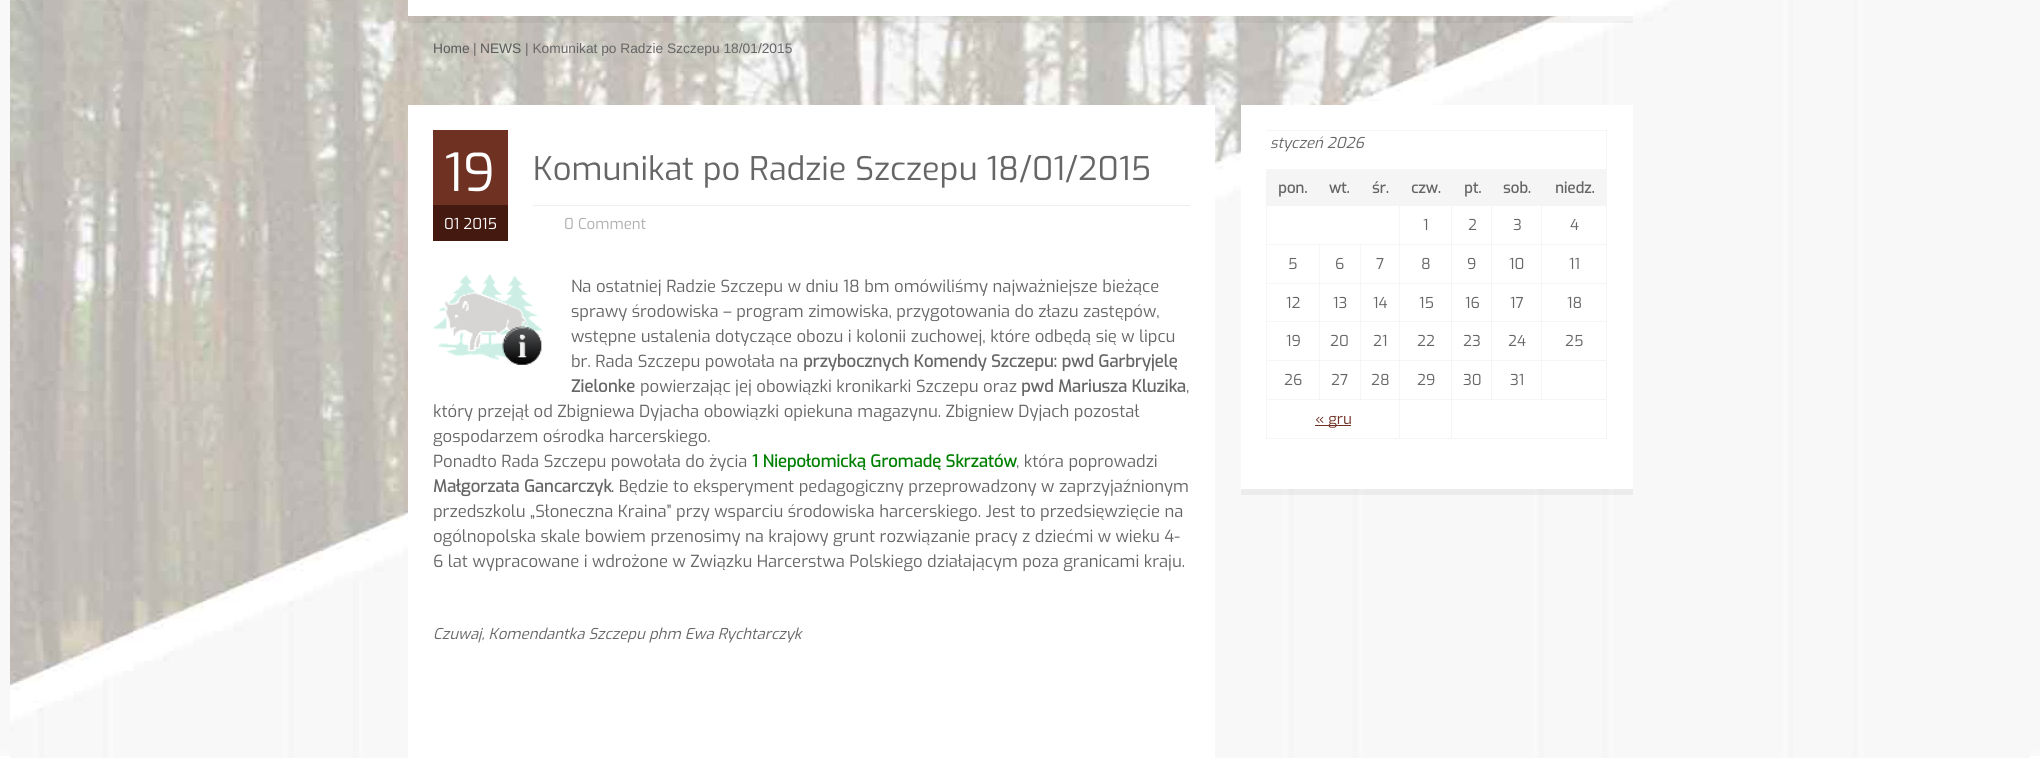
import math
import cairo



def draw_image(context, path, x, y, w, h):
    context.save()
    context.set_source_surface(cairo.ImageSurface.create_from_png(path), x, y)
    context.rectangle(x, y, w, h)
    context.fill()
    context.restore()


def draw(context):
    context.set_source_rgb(1, 1, 1)
    context.paint()
    draw_image(context, "images/1.png", 0, 0, 2040, 756)
    draw_image(context, "images/2.png", 10, 0, 2020, 758)
    context.set_source_rgb(1, 1, 1)
    context.rectangle(408, 0, 1206, 16)
    context.fill()
    context.set_source_rgba(0, 0, 0, 0.05)
    context.rectangle(408, 16, 1225, 7)
    context.fill()
    context.set_source_rgb(1, 1, 1)
    context.rectangle(408, 105, 807, 653)
    context.fill()
    context.set_source_rgb(111 / 255, 49 / 255, 34 / 255)
    context.rectangle(433, 130, 75, 75)
    context.fill()
    context.set_source_rgb(68 / 255, 25 / 255, 15 / 255)
    context.rectangle(433, 205, 75, 36)
    context.fill()
    context.set_source_rgb(238 / 255, 238 / 255, 238 / 255)
    context.rectangle(533, 205, 657, 1)
    context.fill()
    draw_image(context, "images/3.png", 433, 274, 110, 91)
    context.set_source_rgba(0, 0, 0, 0.05)
    context.new_path()
    context.move_to(1241, 111)
    context.line_to(1241, 495)
    context.line_to(1633, 495)
    context.line_to(1633, 111)
    context.line_to(1632, 111)
    context.line_to(1632, 489)
    context.line_to(1241, 489)
    context.close_path()
    context.fill()
    context.set_source_rgb(1, 1, 1)
    context.rectangle(1241, 105, 392, 384)
    context.fill()
    context.set_source_rgb(245 / 255, 245 / 255, 245 / 255)
    context.rectangle(1266, 130, 342, 1)
    context.fill()
    context.rectangle(1606, 130, 1, 309)
    context.fill()
    context.rectangle(1266, 169, 340, 37)
    context.fill()
    context.rectangle(1266, 244, 340, 1)
    context.fill()
    context.rectangle(1266, 206, 1, 39)
    context.fill()
    context.rectangle(1399, 206, 1, 39)
    context.fill()
    context.rectangle(1451, 206, 1, 39)
    context.fill()
    context.rectangle(1491, 206, 1, 39)
    context.fill()
    context.rectangle(1541, 206, 1, 39)
    context.fill()
    context.rectangle(1266, 283, 340, 1)
    context.fill()
    context.rectangle(1266, 245, 1, 39)
    context.fill()
    context.rectangle(1319, 245, 1, 39)
    context.fill()
    context.rectangle(1360, 245, 1, 39)
    context.fill()
    context.rectangle(1399, 245, 1, 39)
    context.fill()
    context.rectangle(1451, 245, 1, 39)
    context.fill()
    context.rectangle(1491, 245, 1, 39)
    context.fill()
    context.rectangle(1541, 245, 1, 39)
    context.fill()
    context.rectangle(1266, 321, 340, 1)
    context.fill()
    context.rectangle(1266, 284, 1, 39)
    context.fill()
    context.rectangle(1319, 284, 1, 39)
    context.fill()
    context.rectangle(1360, 284, 1, 39)
    context.fill()
    context.rectangle(1399, 284, 1, 39)
    context.fill()
    context.rectangle(1451, 284, 1, 39)
    context.fill()
    context.rectangle(1491, 284, 1, 39)
    context.fill()
    context.rectangle(1541, 284, 1, 39)
    context.fill()
    context.rectangle(1266, 360, 340, 1)
    context.fill()
    context.rectangle(1266, 323, 1, 38)
    context.fill()
    context.rectangle(1319, 323, 1, 38)
    context.fill()
    context.rectangle(1360, 323, 1, 38)
    context.fill()
    context.rectangle(1399, 323, 1, 38)
    context.fill()
    context.rectangle(1451, 323, 1, 38)
    context.fill()
    context.rectangle(1491, 323, 1, 38)
    context.fill()
    context.rectangle(1541, 323, 1, 38)
    context.fill()
    context.rectangle(1266, 399, 340, 1)
    context.fill()
    context.rectangle(1266, 361, 1, 39)
    context.fill()
    context.rectangle(1319, 361, 1, 39)
    context.fill()
    context.rectangle(1360, 361, 1, 39)
    context.fill()
    context.rectangle(1399, 361, 1, 39)
    context.fill()
    context.rectangle(1451, 361, 1, 39)
    context.fill()
    context.rectangle(1491, 361, 1, 39)
    context.fill()
    context.rectangle(1541, 361, 1, 39)
    context.fill()
    context.rectangle(1266, 438, 340, 1)
    context.fill()
    context.rectangle(1266, 400, 1, 39)
    context.fill()
    context.set_source_rgb(111 / 255, 49 / 255, 34 / 255)
    context.rectangle(1315, 425, 36, 1)
    context.fill()
    context.set_source_rgb(245 / 255, 245 / 255, 245 / 255)
    context.rectangle(1399, 400, 1, 39)
    context.fill()
    context.rectangle(1451, 400, 1, 39)
    context.fill()
    context.select_font_face("Liberation Sans")
    context.set_font_size(13.75)
    context.set_source_rgb(89 / 255, 89 / 255, 89 / 255)
    context.move_to(433, 53)
    context.show_text("Home")
    context.set_source_rgb(102 / 255, 102 / 255, 102 / 255)
    context.move_to(473, 53)
    context.show_text("|")
    context.set_source_rgb(89 / 255, 89 / 255, 89 / 255)
    context.move_to(480, 53)
    context.show_text("NEWS")
    context.set_source_rgb(102 / 255, 102 / 255, 102 / 255)
    context.move_to(525, 53)
    context.show_text("| Komunikat po Radzie Szczepu 18/01/2015")
    context.select_font_face("Exo")
    context.set_font_size(52)
    context.set_source_rgb(1, 1, 1)
    context.move_to(444, 191)
    context.show_text("19")
    context.set_font_size(15)
    context.move_to(444, 229)
    context.show_text("01 2015")
    context.set_font_size(32.5)
    context.set_source_rgb(102 / 255, 102 / 255, 102 / 255)
    context.move_to(533, 180)
    context.show_text("Komunikat po Radzie Szczepu 18/01/2015")
    context.set_font_size(15)
    context.set_source_rgb(175 / 255, 175 / 255, 175 / 255)
    context.move_to(564, 229)
    context.show_text("0 Comment")
    context.set_font_size(16.65)
    context.set_source_rgb(102 / 255, 102 / 255, 102 / 255)
    context.move_to(571, 292)
    context.show_text("Na ostatniej Radzie Szczepu w dniu 18 bm omówiliśmy najważniejsze bieżące")
    context.move_to(571, 317)
    context.show_text("sprawy środowiska – program zimowiska, przygotowania do złazu zastępów,")
    context.move_to(571, 342)
    context.show_text("wstępne ustalenia dotyczące obozu i kolonii zuchowej, które odbędą się w lipcu")
    context.move_to(571, 367)
    context.show_text("br. Rada Szczepu powołała na")
    context.select_font_face("Exo", cairo.FontSlant.NORMAL, cairo.FontWeight.BOLD)
    context.move_to(803, 367)
    context.show_text("przybocznych Komendy Szczepu: pwd Garbryjelę")
    context.move_to(571, 392)
    context.show_text("Zielonke")
    context.select_font_face("Exo")
    context.move_to(640, 392)
    context.show_text("powierzając jej obowiązki kronikarki Szczepu oraz")
    context.select_font_face("Exo", cairo.FontSlant.NORMAL, cairo.FontWeight.BOLD)
    context.move_to(1021, 392)
    context.show_text("pwd Mariusza Kluzika")
    context.select_font_face("Exo")
    context.move_to(1186, 392)
    context.show_text(",")
    context.move_to(433, 417)
    context.show_text("który przejął od Zbigniewa Dyjacha obowiązki opiekuna magazynu. Zbigniew Dyjach pozostał")
    context.move_to(433, 442)
    context.show_text("gospodarzem ośrodka harcerskiego.")
    context.move_to(433, 467)
    context.show_text("Ponadto Rada Szczepu powołała do życia")
    context.select_font_face("Exo", cairo.FontSlant.NORMAL, cairo.FontWeight.BOLD)
    context.set_source_rgb(0, 128 / 255, 0)
    context.move_to(752, 467)
    context.show_text("1 Niepołomicką Gromadę Skrzatów")
    context.select_font_face("Exo")
    context.set_source_rgb(102 / 255, 102 / 255, 102 / 255)
    context.move_to(1016, 467)
    context.show_text(", która poprowadzi")
    context.select_font_face("Exo", cairo.FontSlant.NORMAL, cairo.FontWeight.BOLD)
    context.move_to(433, 492)
    context.show_text("Małgorzata Gancarczyk")
    context.select_font_face("Exo")
    context.move_to(611, 492)
    context.show_text(". Będzie to eksperyment pedagogiczny przeprowadzony w zaprzyjaźnionym")
    context.move_to(433, 517)
    context.show_text("przedszkolu „Słoneczna Kraina” przy wsparciu środowiska harcerskiego. Jest to przedsięwzięcie na")
    context.move_to(433, 542)
    context.show_text("ogólnopolska skale bowiem przenosimy na krajowy grunt rozwiązanie pracy z dziećmi w wieku 4-")
    context.move_to(433, 567)
    context.show_text("6 lat wypracowane i wdrożone w Związku Harcerstwa Polskiego działającym poza granicami kraju.")
    context.select_font_face("Exo", cairo.FontSlant.ITALIC)
    context.set_font_size(15)
    context.move_to(433, 639)
    context.show_text("Czuwaj, Komendantka Szczepu phm Ewa Rychtarczyk")
    context.move_to(1270, 148)
    context.show_text("styczeń 2026")
    context.select_font_face("Exo", cairo.FontSlant.NORMAL, cairo.FontWeight.BOLD)
    context.move_to(1278, 193)
    context.show_text("pon.")
    context.move_to(1329, 193)
    context.show_text("wt.")
    context.move_to(1372, 193)
    context.show_text("śr.")
    context.move_to(1411, 193)
    context.show_text("czw.")
    context.move_to(1464, 193)
    context.show_text("pt.")
    context.move_to(1503, 193)
    context.show_text("sob.")
    context.move_to(1555, 193)
    context.show_text("niedz.")
    context.select_font_face("Exo")
    context.move_to(1423, 230)
    context.show_text("1")
    context.move_to(1468, 230)
    context.show_text("2")
    context.move_to(1513, 230)
    context.show_text("3")
    context.move_to(1570, 230)
    context.show_text("4")
    context.move_to(1288, 269)
    context.show_text("5")
    context.move_to(1335, 269)
    context.show_text("6")
    context.move_to(1376, 269)
    context.show_text("7")
    context.move_to(1421, 269)
    context.show_text("8")
    context.move_to(1467, 269)
    context.show_text("9")
    context.move_to(1509, 269)
    context.show_text("10")
    context.move_to(1569, 269)
    context.show_text("11")
    context.move_to(1286, 308)
    context.show_text("12")
    context.move_to(1333, 308)
    context.show_text("13")
    context.move_to(1373, 308)
    context.show_text("14")
    context.move_to(1419, 308)
    context.show_text("15")
    context.move_to(1465, 308)
    context.show_text("16")
    context.move_to(1510, 308)
    context.show_text("17")
    context.move_to(1567, 308)
    context.show_text("18")
    context.move_to(1286, 346)
    context.show_text("19")
    context.move_to(1330, 346)
    context.show_text("20")
    context.move_to(1373, 346)
    context.show_text("21")
    context.move_to(1417, 346)
    context.show_text("22")
    context.move_to(1463, 346)
    context.show_text("23")
    context.move_to(1508, 346)
    context.show_text("24")
    context.move_to(1565, 346)
    context.show_text("25")
    context.move_to(1284, 385)
    context.show_text("26")
    context.move_to(1331, 385)
    context.show_text("27")
    context.move_to(1371, 385)
    context.show_text("28")
    context.move_to(1417, 385)
    context.show_text("29")
    context.move_to(1463, 385)
    context.show_text("30")
    context.move_to(1510, 385)
    context.show_text("31")
    context.set_source_rgb(111 / 255, 49 / 255, 34 / 255)
    context.move_to(1315, 424)
    context.show_text("« gru")


surface = cairo.ImageSurface(cairo.Format.RGB24, 2040, 758)
context = cairo.Context(surface)
options = cairo.FontOptions()
options.set_hint_metrics(cairo.HintMetrics.OFF)
options.set_hint_style(cairo.HintStyle.NONE)
context.set_font_options(options)
context.set_miter_limit(4)
draw(context)
surface.write_to_png("out.png")
